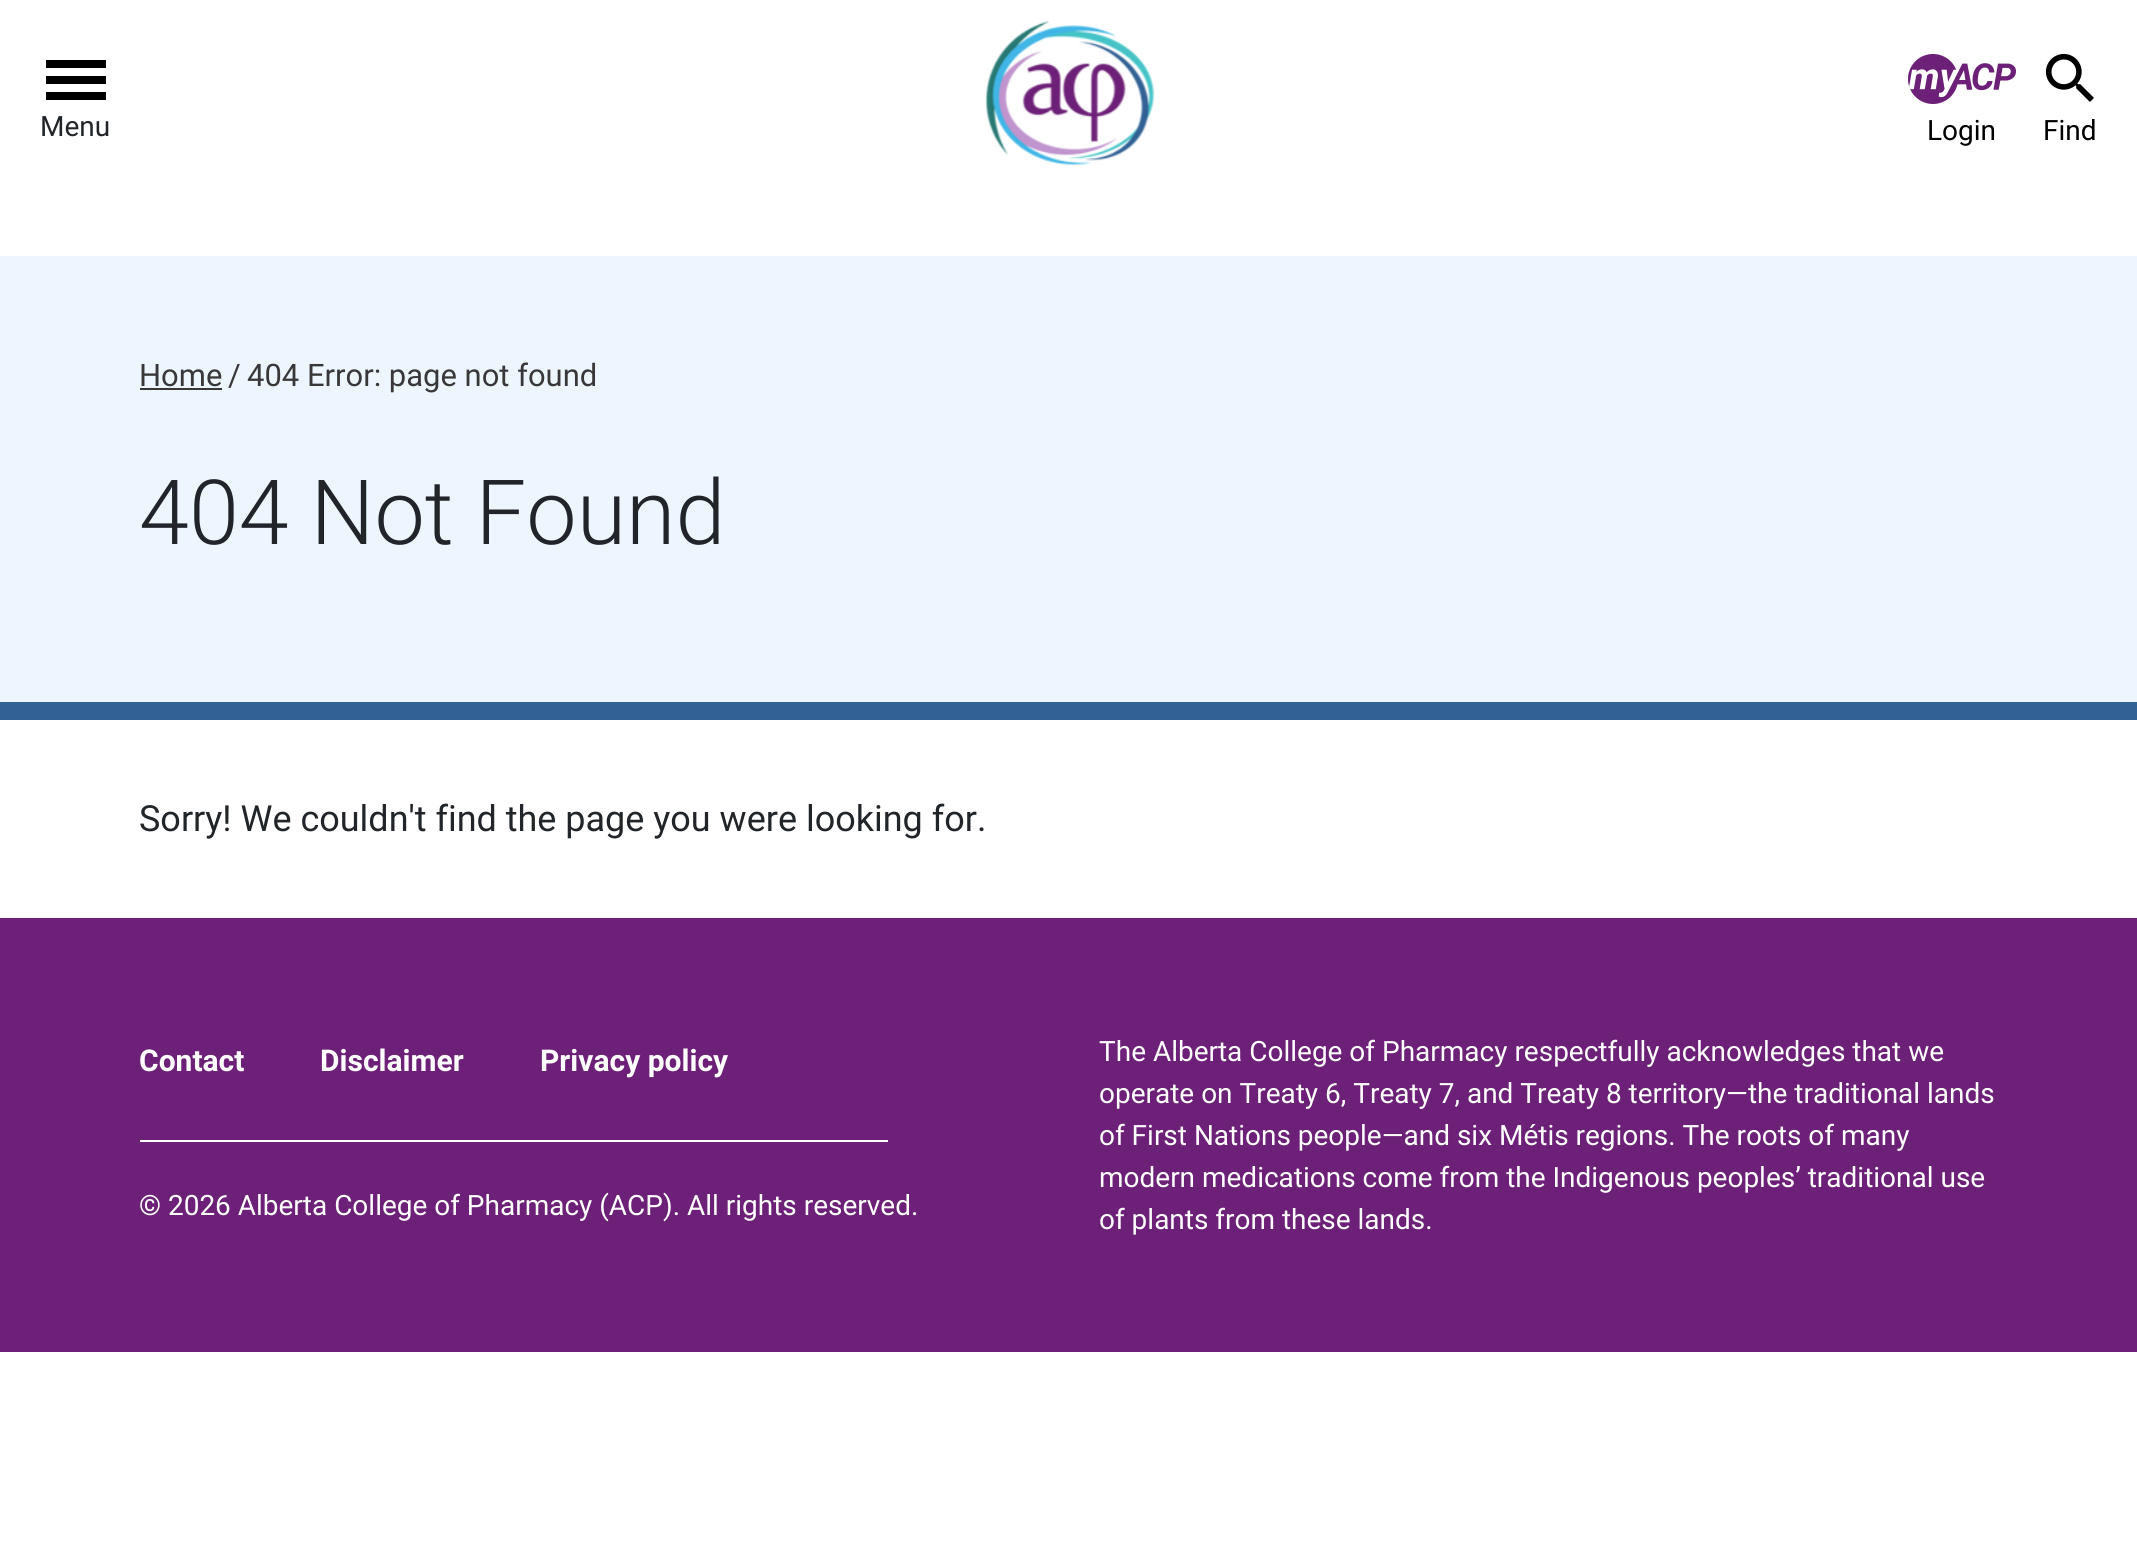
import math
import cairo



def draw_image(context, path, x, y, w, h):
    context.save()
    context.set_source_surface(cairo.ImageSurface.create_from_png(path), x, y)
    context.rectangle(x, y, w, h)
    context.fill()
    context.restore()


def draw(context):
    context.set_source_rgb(1, 1, 1)
    context.paint()
    context.set_source_rgb(0, 0, 0)
    context.rectangle(46, 60, 60, 8)
    context.fill()
    context.rectangle(46, 76, 60, 8)
    context.fill()
    context.rectangle(46, 92, 60, 8)
    context.fill()
    draw_image(context, "images/1.png", 985, 21, 170, 145)
    draw_image(context, "images/2.png", 1908, 54, 108, 50)
    draw_image(context, "images/3.png", 2046, 54, 48, 48)
    context.set_source_rgb(237 / 255, 246 / 255, 1)
    context.rectangle(0, 256, 2137, 446)
    context.fill()
    context.set_source_rgb(50 / 255, 98 / 255, 149 / 255)
    context.rectangle(0, 702, 2137, 18)
    context.fill()
    context.set_source_rgb(56 / 255, 56 / 255, 56 / 255)
    context.rectangle(140, 388, 82, 2)
    context.fill()
    context.set_source_rgb(109 / 255, 32 / 255, 119 / 255)
    context.rectangle(0, 918, 2137, 434)
    context.fill()
    context.set_source_rgb(1, 1, 1)
    context.rectangle(140, 1140, 748, 2)
    context.fill()
    context.select_font_face("Roboto")
    context.set_font_size(28)
    context.set_source_rgb(33 / 255, 37 / 255, 41 / 255)
    context.move_to(40, 136)
    context.show_text("Menu")
    context.set_source_rgb(0, 0, 0)
    context.move_to(1927, 140)
    context.show_text("Login")
    context.move_to(2043, 140)
    context.show_text("Find")
    context.set_font_size(31)
    context.set_source_rgb(56 / 255, 56 / 255, 56 / 255)
    context.move_to(139, 386)
    context.show_text("Home")
    context.move_to(228, 386)
    context.show_text("/")
    context.move_to(247, 386)
    context.show_text("404 Error: page not found")
    context.select_font_face("Roboto Light")
    context.set_font_size(90)
    context.set_source_rgb(33 / 255, 37 / 255, 41 / 255)
    context.move_to(139, 544)
    context.show_text("404 Not Found")
    context.select_font_face("Roboto")
    context.set_font_size(36)
    context.move_to(139, 831)
    context.show_text("Sorry! We couldn't find the page you were looking for.")
    context.select_font_face("Roboto", cairo.FontSlant.NORMAL, cairo.FontWeight.BOLD)
    context.set_font_size(30)
    context.set_source_rgb(1, 1, 1)
    context.move_to(139, 1071)
    context.show_text("Contact")
    context.move_to(320, 1071)
    context.show_text("Disclaimer")
    context.move_to(540, 1071)
    context.show_text("Privacy policy")
    context.select_font_face("Roboto")
    context.set_font_size(28)
    context.move_to(139, 1215)
    context.show_text("© 2026 Alberta College of Pharmacy (ACP). All rights reserved.")
    context.move_to(1099, 1061)
    context.show_text("The Alberta College of Pharmacy respectfully acknowledges that we")
    context.move_to(1099, 1103)
    context.show_text("operate on Treaty 6, Treaty 7, and Treaty 8 territory—the traditional lands")
    context.move_to(1099, 1145)
    context.show_text("of First Nations people—and six Métis regions. The roots of many")
    context.move_to(1099, 1187)
    context.show_text("modern medications come from the Indigenous peoples’ traditional use")
    context.move_to(1099, 1229)
    context.show_text("of plants from these lands.")


surface = cairo.ImageSurface(cairo.Format.RGB24, 2137, 1549)
context = cairo.Context(surface)
options = cairo.FontOptions()
options.set_hint_metrics(cairo.HintMetrics.OFF)
options.set_hint_style(cairo.HintStyle.NONE)
context.set_font_options(options)
context.set_miter_limit(4)
draw(context)
surface.write_to_png("out.png")
